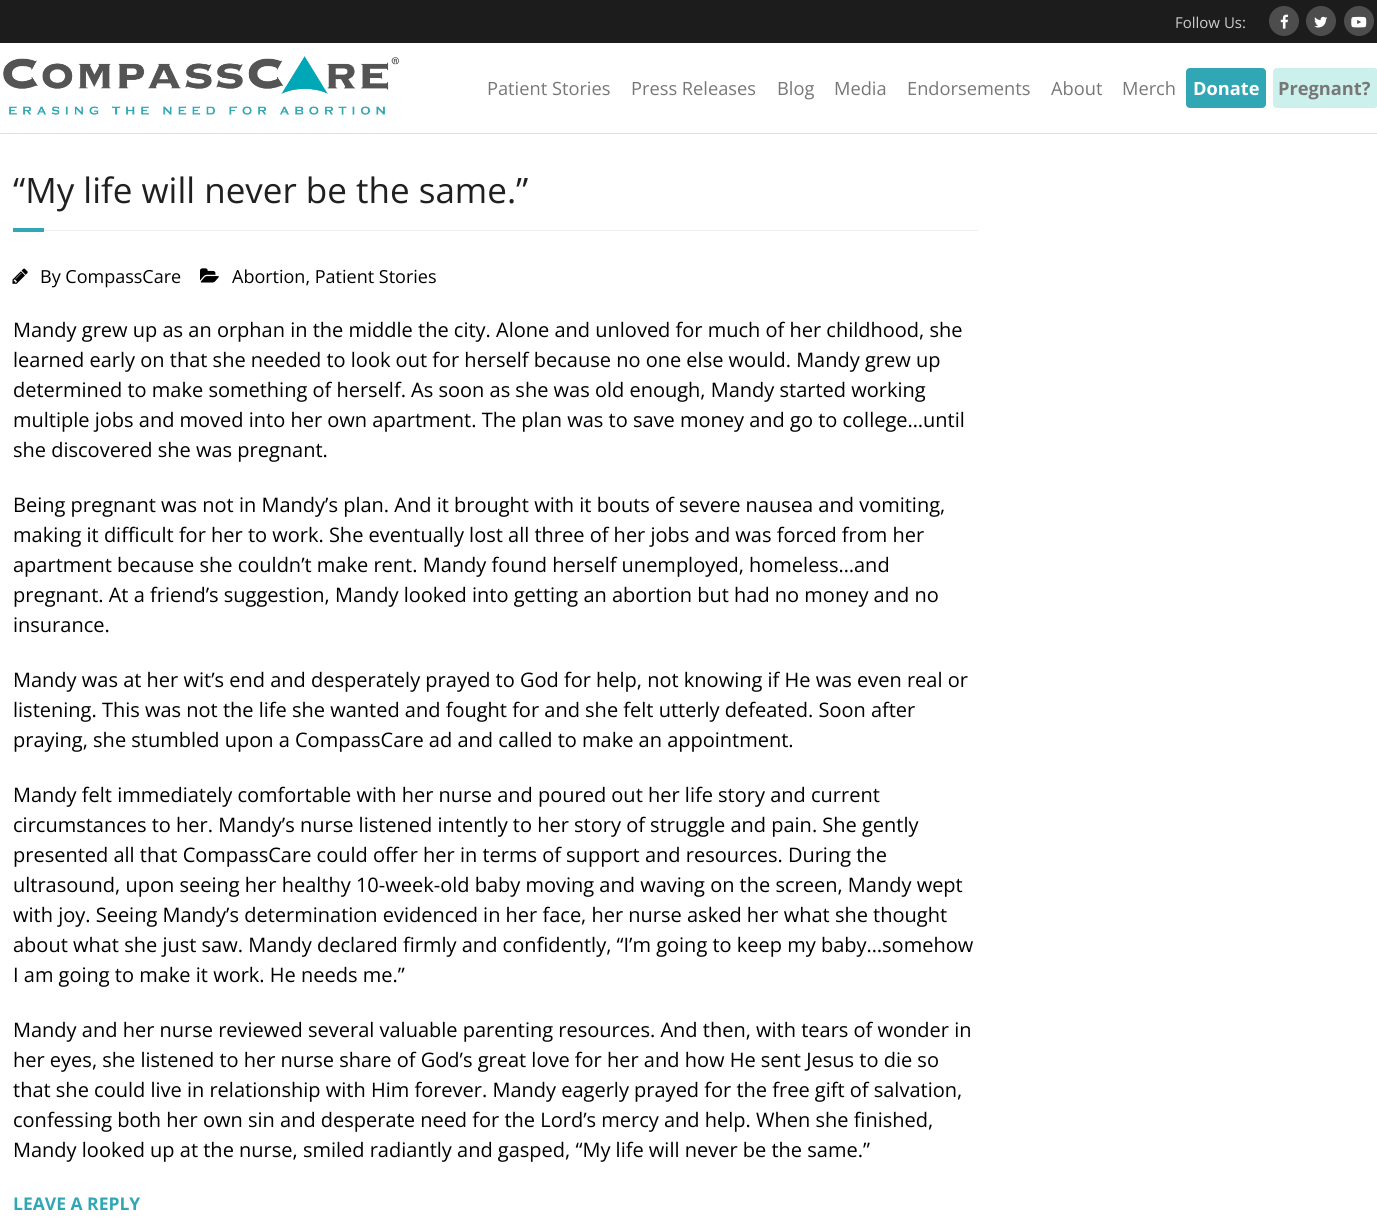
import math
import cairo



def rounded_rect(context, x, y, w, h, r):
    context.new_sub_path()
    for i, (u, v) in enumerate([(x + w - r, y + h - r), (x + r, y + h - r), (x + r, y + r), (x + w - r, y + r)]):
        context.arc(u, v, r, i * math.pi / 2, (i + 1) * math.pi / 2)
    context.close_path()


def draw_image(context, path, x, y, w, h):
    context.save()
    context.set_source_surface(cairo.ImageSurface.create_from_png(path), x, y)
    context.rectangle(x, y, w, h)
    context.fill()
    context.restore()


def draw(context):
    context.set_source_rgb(1, 1, 1)
    context.paint()
    context.set_source_rgb(28 / 255, 28 / 255, 28 / 255)
    context.rectangle(0, 0, 1377, 43)
    context.fill()
    context.set_source_rgb(77 / 255, 77 / 255, 77 / 255)
    context.arc(1284, 21, 15, 0, 2 * math.pi)
    context.fill()
    draw_image(context, "images/1.png", 1280, 14, 9, 15)
    context.arc(1321, 21, 15, 0, 2 * math.pi)
    context.fill()
    draw_image(context, "images/2.png", 1314, 16, 14, 12)
    context.arc(1359, 21, 15, 0, 2 * math.pi)
    context.fill()
    draw_image(context, "images/3.png", 1351, 16, 16, 12)
    context.set_source_rgb(224 / 255, 224 / 255, 224 / 255)
    context.rectangle(0, 133, 1377, 1)
    context.fill()
    draw_image(context, "images/4.png", 3, 56, 396, 59)
    context.set_source_rgb(49 / 255, 167 / 255, 181 / 255)
    rounded_rect(context, 1186, 68, 80, 40, 4)
    context.fill()
    context.set_source_rgb(204 / 255, 241 / 255, 236 / 255)
    rounded_rect(context, 1273, 68, 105, 40, 4)
    context.fill()
    context.set_source_rgb(49 / 255, 167 / 255, 181 / 255)
    context.rectangle(13, 228, 31, 4)
    context.fill()
    context.set_source_rgb(238 / 255, 238 / 255, 238 / 255)
    context.rectangle(44, 230, 934, 1)
    context.fill()
    draw_image(context, "images/5.png", 12, 268, 16, 16)
    draw_image(context, "images/6.png", 200, 268, 19, 15)
    context.select_font_face("Open Sans")
    context.set_font_size(15)
    context.set_source_rgb(204 / 255, 204 / 255, 204 / 255)
    context.move_to(1175, 28)
    context.show_text("Follow Us:")
    context.set_font_size(18.25)
    context.set_source_rgb(119 / 255, 119 / 255, 119 / 255)
    context.move_to(487, 95)
    context.show_text("Patient Stories")
    context.move_to(631, 95)
    context.show_text("Press Releases")
    context.move_to(777, 95)
    context.show_text("Blog")
    context.move_to(834, 95)
    context.show_text("Media")
    context.move_to(907, 95)
    context.show_text("Endorsements")
    context.move_to(1051, 95)
    context.show_text("About")
    context.move_to(1122, 95)
    context.show_text("Merch")
    context.select_font_face("Open Sans", cairo.FontSlant.NORMAL, cairo.FontWeight.BOLD)
    context.set_source_rgb(1, 1, 1)
    context.move_to(1193, 95)
    context.show_text("Donate")
    context.set_source_rgb(119 / 255, 119 / 255, 119 / 255)
    context.move_to(1278, 95)
    context.show_text("Pregnant?")
    context.select_font_face("Open Sans")
    context.set_font_size(35)
    context.set_source_rgb(32 / 255, 32 / 255, 32 / 255)
    context.move_to(13, 203)
    context.show_text("“My life will never be the same.”")
    context.set_font_size(18)
    context.set_source_rgb(0, 0, 0)
    context.move_to(40, 283)
    context.show_text("By CompassCare")
    context.move_to(232, 283)
    context.show_text("Abortion, Patient Stories")
    context.set_font_size(20)
    context.move_to(13, 337)
    context.show_text("Mandy grew up as an orphan in the middle the city. Alone and unloved for much of her childhood, she")
    context.move_to(13, 367)
    context.show_text("learned early on that she needed to look out for herself because no one else would. Mandy grew up")
    context.move_to(13, 397)
    context.show_text("determined to make something of herself. As soon as she was old enough, Mandy started working")
    context.move_to(13, 427)
    context.show_text("multiple jobs and moved into her own apartment. The plan was to save money and go to college…until")
    context.move_to(13, 457)
    context.show_text("she discovered she was pregnant.")
    context.move_to(13, 512)
    context.show_text("Being pregnant was not in Mandy’s plan. And it brought with it bouts of severe nausea and vomiting,")
    context.move_to(13, 542)
    context.show_text("making it difficult for her to work. She eventually lost all three of her jobs and was forced from her")
    context.move_to(13, 572)
    context.show_text("apartment because she couldn’t make rent. Mandy found herself unemployed, homeless…and")
    context.move_to(13, 602)
    context.show_text("pregnant. At a friend’s suggestion, Mandy looked into getting an abortion but had no money and no")
    context.move_to(13, 632)
    context.show_text("insurance.")
    context.move_to(13, 687)
    context.show_text("Mandy was at her wit’s end and desperately prayed to God for help, not knowing if He was even real or")
    context.move_to(13, 717)
    context.show_text("listening. This was not the life she wanted and fought for and she felt utterly defeated. Soon after")
    context.move_to(13, 747)
    context.show_text("praying, she stumbled upon a CompassCare ad and called to make an appointment.")
    context.move_to(13, 802)
    context.show_text("Mandy felt immediately comfortable with her nurse and poured out her life story and current")
    context.move_to(13, 832)
    context.show_text("circumstances to her. Mandy’s nurse listened intently to her story of struggle and pain. She gently")
    context.move_to(13, 862)
    context.show_text("presented all that CompassCare could offer her in terms of support and resources. During the")
    context.move_to(13, 892)
    context.show_text("ultrasound, upon seeing her healthy 10-week-old baby moving and waving on the screen, Mandy wept")
    context.move_to(13, 922)
    context.show_text("with joy. Seeing Mandy’s determination evidenced in her face, her nurse asked her what she thought")
    context.move_to(13, 952)
    context.show_text("about what she just saw. Mandy declared firmly and confidently, “I’m going to keep my baby…somehow")
    context.move_to(13, 982)
    context.show_text("I am going to make it work. He needs me.”")
    context.move_to(13, 1037)
    context.show_text("Mandy and her nurse reviewed several valuable parenting resources. And then, with tears of wonder in")
    context.move_to(13, 1067)
    context.show_text("her eyes, she listened to her nurse share of God’s great love for her and how He sent Jesus to die so")
    context.move_to(13, 1097)
    context.show_text("that she could live in relationship with Him forever. Mandy eagerly prayed for the free gift of salvation,")
    context.move_to(13, 1127)
    context.show_text("confessing both her own sin and desperate need for the Lord’s mercy and help. When she finished,")
    context.move_to(13, 1157)
    context.show_text("Mandy looked up at the nurse, smiled radiantly and gasped, “My life will never be the same.”")
    context.select_font_face("Open Sans", cairo.FontSlant.NORMAL, cairo.FontWeight.BOLD)
    context.set_font_size(17.5)
    context.set_source_rgb(49 / 255, 167 / 255, 181 / 255)
    context.move_to(13, 1210)
    context.show_text("LEAVE A REPLY")


surface = cairo.ImageSurface(cairo.Format.RGB24, 1377, 1224)
context = cairo.Context(surface)
options = cairo.FontOptions()
options.set_hint_metrics(cairo.HintMetrics.OFF)
options.set_hint_style(cairo.HintStyle.NONE)
context.set_font_options(options)
context.set_miter_limit(4)
draw(context)
surface.write_to_png("out.png")
